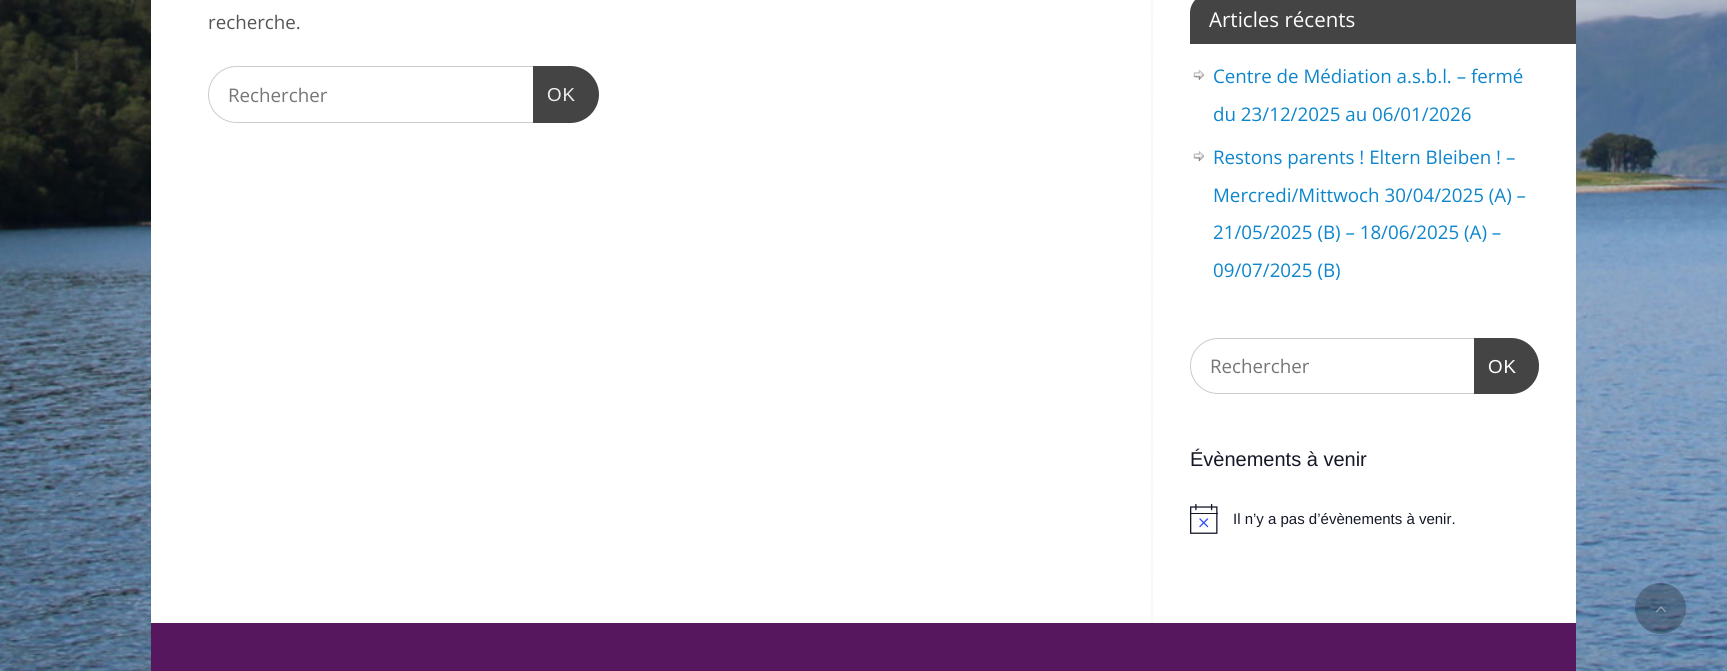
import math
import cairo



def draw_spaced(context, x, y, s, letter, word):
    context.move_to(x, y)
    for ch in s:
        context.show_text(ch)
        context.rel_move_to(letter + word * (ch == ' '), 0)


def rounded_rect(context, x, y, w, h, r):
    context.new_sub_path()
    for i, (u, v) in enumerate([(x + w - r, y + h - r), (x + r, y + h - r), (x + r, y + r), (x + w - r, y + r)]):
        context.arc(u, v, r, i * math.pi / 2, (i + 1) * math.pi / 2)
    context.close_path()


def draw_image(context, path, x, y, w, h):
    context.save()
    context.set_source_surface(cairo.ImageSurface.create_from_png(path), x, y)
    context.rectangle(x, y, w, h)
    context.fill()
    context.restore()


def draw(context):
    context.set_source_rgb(1, 1, 1)
    context.paint()
    draw_image(context, "images/1.png", 0, 0, 1727, 671)
    context.set_source_rgb(1, 1, 1)
    context.rectangle(151, 0, 1425, 623)
    context.fill()
    rounded_rect(context, 208.5, 66.5, 374, 56, 28)
    context.set_source_rgb(204 / 255, 204 / 255, 204 / 255)
    context.set_line_width(1)
    context.stroke()
    context.set_source_rgb(68 / 255, 68 / 255, 68 / 255)
    context.new_path()
    context.move_to(533, 66)
    context.line_to(570.5, 66)
    context.curve_to(586, 66, 599, 79, 599, 94.5)
    context.curve_to(599, 110, 586, 123, 570.5, 123)
    context.line_to(533, 123)
    context.close_path()
    context.fill()
    context.new_path()
    context.move_to(1152, -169)
    context.line_to(1152, 622.5)
    context.set_source_rgb(234 / 255, 234 / 255, 234 / 255)
    context.set_line_width(1.2)
    context.set_dash([1.25, 1.25])
    context.stroke()
    context.set_source_rgb(68 / 255, 68 / 255, 68 / 255)
    context.new_path()
    context.move_to(1209, -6)
    context.line_to(1576, -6)
    context.line_to(1576, 44)
    context.line_to(1190, 44)
    context.line_to(1190, 13)
    context.curve_to(1190, 2.5, 1198.5, -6, 1209, -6)
    context.close_path()
    context.fill()
    draw_image(context, "images/2.png", 1193, 69, 11, 11)
    draw_image(context, "images/3.png", 1193, 151, 11, 10)
    rounded_rect(context, 1190.5, 338.5, 348, 55, 27.5)
    context.set_source_rgb(204 / 255, 204 / 255, 204 / 255)
    context.set_line_width(1)
    context.set_dash([])
    context.stroke()
    context.set_source_rgb(68 / 255, 68 / 255, 68 / 255)
    context.new_path()
    context.move_to(1474, 338)
    context.line_to(1511, 338)
    context.curve_to(1526.5, 338, 1539, 350.5, 1539, 366)
    context.curve_to(1539, 381.5, 1526.5, 394, 1511, 394)
    context.line_to(1474, 394)
    context.close_path()
    context.fill()
    draw_image(context, "images/4.png", 1190, 504, 28, 30)
    context.set_source_rgb(87 / 255, 23 / 255, 94 / 255)
    context.rectangle(151, 623, 1425, 48)
    context.fill()
    context.set_source_rgba(0, 0, 0, 0.25)
    context.arc(1660.5, 608.5, 25.5, 0, 2 * math.pi)
    context.fill()
    draw_image(context, "images/5.png", 1655, 606, 12, 7)
    context.select_font_face("Open Sans")
    context.set_font_size(18.75)
    context.set_source_rgb(85 / 255, 85 / 255, 85 / 255)
    context.move_to(208, 29)
    context.show_text("recherche.")
    context.set_source_rgb(117 / 255, 117 / 255, 117 / 255)
    context.move_to(228, 102)
    context.show_text("Rechercher")
    context.select_font_face("Liberation Sans")
    context.set_source_rgb(238 / 255, 238 / 255, 238 / 255)
    draw_spaced(context, 547, 101, "OK", 1, 0)
    context.select_font_face("Open Sans")
    context.set_font_size(20.5)
    context.set_source_rgb(1, 1, 1)
    context.move_to(1209, 27)
    context.show_text("Articles récents")
    context.set_font_size(18.75)
    context.set_source_rgb(13 / 255, 133 / 255, 204 / 255)
    context.move_to(1213, 83)
    context.show_text("Centre de Médiation a.s.b.l. – fermé")
    context.move_to(1213, 121)
    context.show_text("du 23/12/2025 au 06/01/2026")
    context.move_to(1213, 164)
    context.show_text("Restons parents ! Eltern Bleiben ! –")
    context.move_to(1213, 202)
    context.show_text("Mercredi/Mittwoch 30/04/2025 (A) –")
    context.move_to(1213, 239)
    context.show_text("21/05/2025 (B) – 18/06/2025 (A) –")
    context.move_to(1213, 277)
    context.show_text("09/07/2025 (B)")
    context.set_source_rgb(117 / 255, 117 / 255, 117 / 255)
    context.move_to(1210, 373)
    context.show_text("Rechercher")
    context.select_font_face("Liberation Sans")
    context.set_source_rgb(1, 1, 1)
    draw_spaced(context, 1488, 373, "OK", 1, 0)
    context.set_font_size(20)
    context.set_source_rgb(20 / 255, 24 / 255, 39 / 255)
    context.move_to(1190, 466)
    context.show_text("Évènements à venir")
    context.set_font_size(15)
    context.move_to(1233, 524)
    context.show_text("Il n’y a pas d’évènements à venir.")


surface = cairo.ImageSurface(cairo.Format.RGB24, 1727, 671)
context = cairo.Context(surface)
options = cairo.FontOptions()
options.set_hint_metrics(cairo.HintMetrics.OFF)
options.set_hint_style(cairo.HintStyle.NONE)
context.set_font_options(options)
context.set_miter_limit(4)
draw(context)
surface.write_to_png("out.png")
